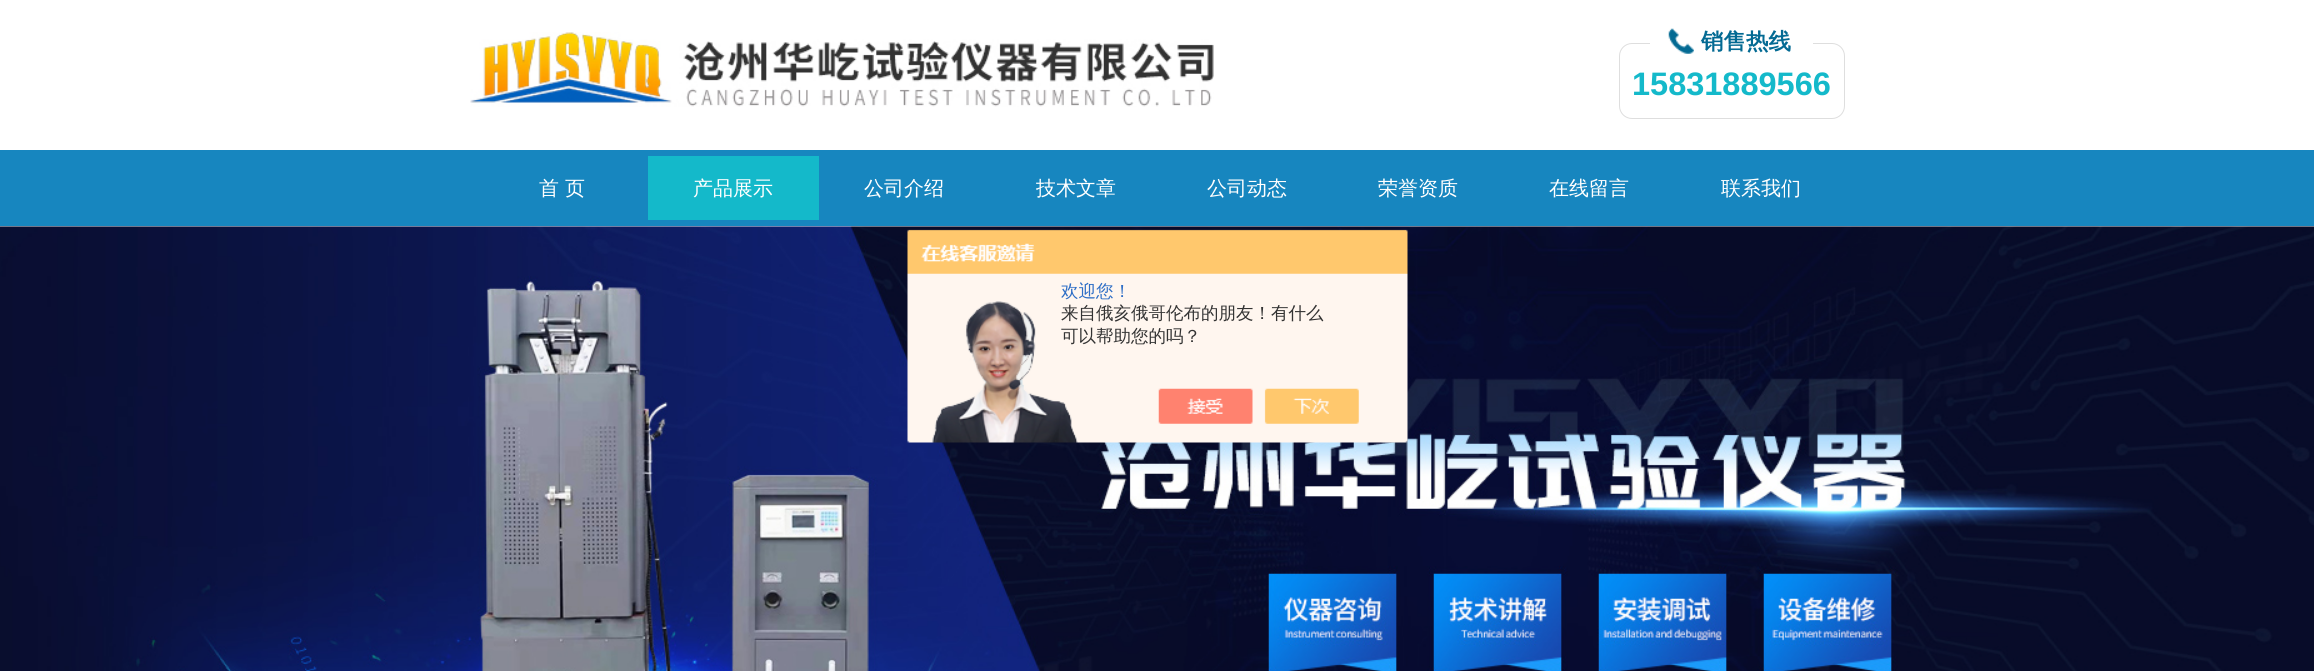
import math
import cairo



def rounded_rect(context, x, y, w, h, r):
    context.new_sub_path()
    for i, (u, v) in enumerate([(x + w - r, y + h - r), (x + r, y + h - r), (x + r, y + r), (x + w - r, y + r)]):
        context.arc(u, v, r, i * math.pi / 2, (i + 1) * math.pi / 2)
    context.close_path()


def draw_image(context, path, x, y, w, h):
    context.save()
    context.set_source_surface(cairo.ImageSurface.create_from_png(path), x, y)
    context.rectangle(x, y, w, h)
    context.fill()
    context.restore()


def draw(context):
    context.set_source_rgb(1, 1, 1)
    context.paint()
    draw_image(context, "images/1.png", 470, 32, 744, 75)
    rounded_rect(context, 1619.5, 43.5, 225, 75, 12.5)
    context.set_source_rgb(222 / 255, 222 / 255, 222 / 255)
    context.set_line_width(1)
    context.stroke()
    context.set_source_rgb(1, 1, 1)
    context.rectangle(1650, 43, 163, 1)
    context.fill()
    draw_image(context, "images/2.png", 1668, 28, 26, 26)
    context.set_source_rgb(23 / 255, 134 / 255, 191 / 255)
    context.rectangle(0, 150, 2314, 76)
    context.fill()
    context.set_source_rgb(20 / 255, 185 / 255, 202 / 255)
    context.rectangle(648, 156, 171, 64)
    context.fill()
    draw_image(context, "images/3.png", 0, 226, 2314, 445)
    draw_image(context, "images/4.png", 907, 229, 501, 214)
    context.select_font_face("WenQuanYi Zen Hei", cairo.FontSlant.NORMAL, cairo.FontWeight.BOLD)
    context.set_font_size(22.5)
    context.set_source_rgb(3 / 255, 106 / 255, 147 / 255)
    context.move_to(1701, 49)
    context.show_text("销售热线")
    context.select_font_face("Liberation Sans", cairo.FontSlant.NORMAL, cairo.FontWeight.BOLD)
    context.set_font_size(32.5)
    context.set_source_rgb(20 / 255, 185 / 255, 202 / 255)
    context.move_to(1632, 95)
    context.show_text("15831889566")
    context.select_font_face("WenQuanYi Zen Hei Medium")
    context.set_font_size(20)
    context.set_source_rgb(1, 1, 1)
    context.move_to(539, 195)
    context.show_text("首 页")
    context.move_to(693, 195)
    context.show_text("产品展示")
    context.move_to(864, 195)
    context.show_text("公司介绍")
    context.move_to(1036, 195)
    context.show_text("技术文章")
    context.move_to(1207, 195)
    context.show_text("公司动态")
    context.move_to(1378, 195)
    context.show_text("荣誉资质")
    context.move_to(1549, 195)
    context.show_text("在线留言")
    context.move_to(1721, 195)
    context.show_text("联系我们")
    context.set_font_size(17.5)
    context.set_source_rgb(46 / 255, 110 / 255, 198 / 255)
    context.move_to(1061, 297)
    context.show_text("欢迎您！")
    context.set_source_rgb(51 / 255, 51 / 255, 51 / 255)
    context.move_to(1061, 319)
    context.show_text("来自俄亥俄哥伦布的朋友！有什么")
    context.move_to(1061, 342)
    context.show_text("可以帮助您的吗？")


surface = cairo.ImageSurface(cairo.Format.RGB24, 2314, 671)
context = cairo.Context(surface)
options = cairo.FontOptions()
options.set_hint_metrics(cairo.HintMetrics.OFF)
options.set_hint_style(cairo.HintStyle.NONE)
context.set_font_options(options)
context.set_miter_limit(4)
draw(context)
surface.write_to_png("out.png")
